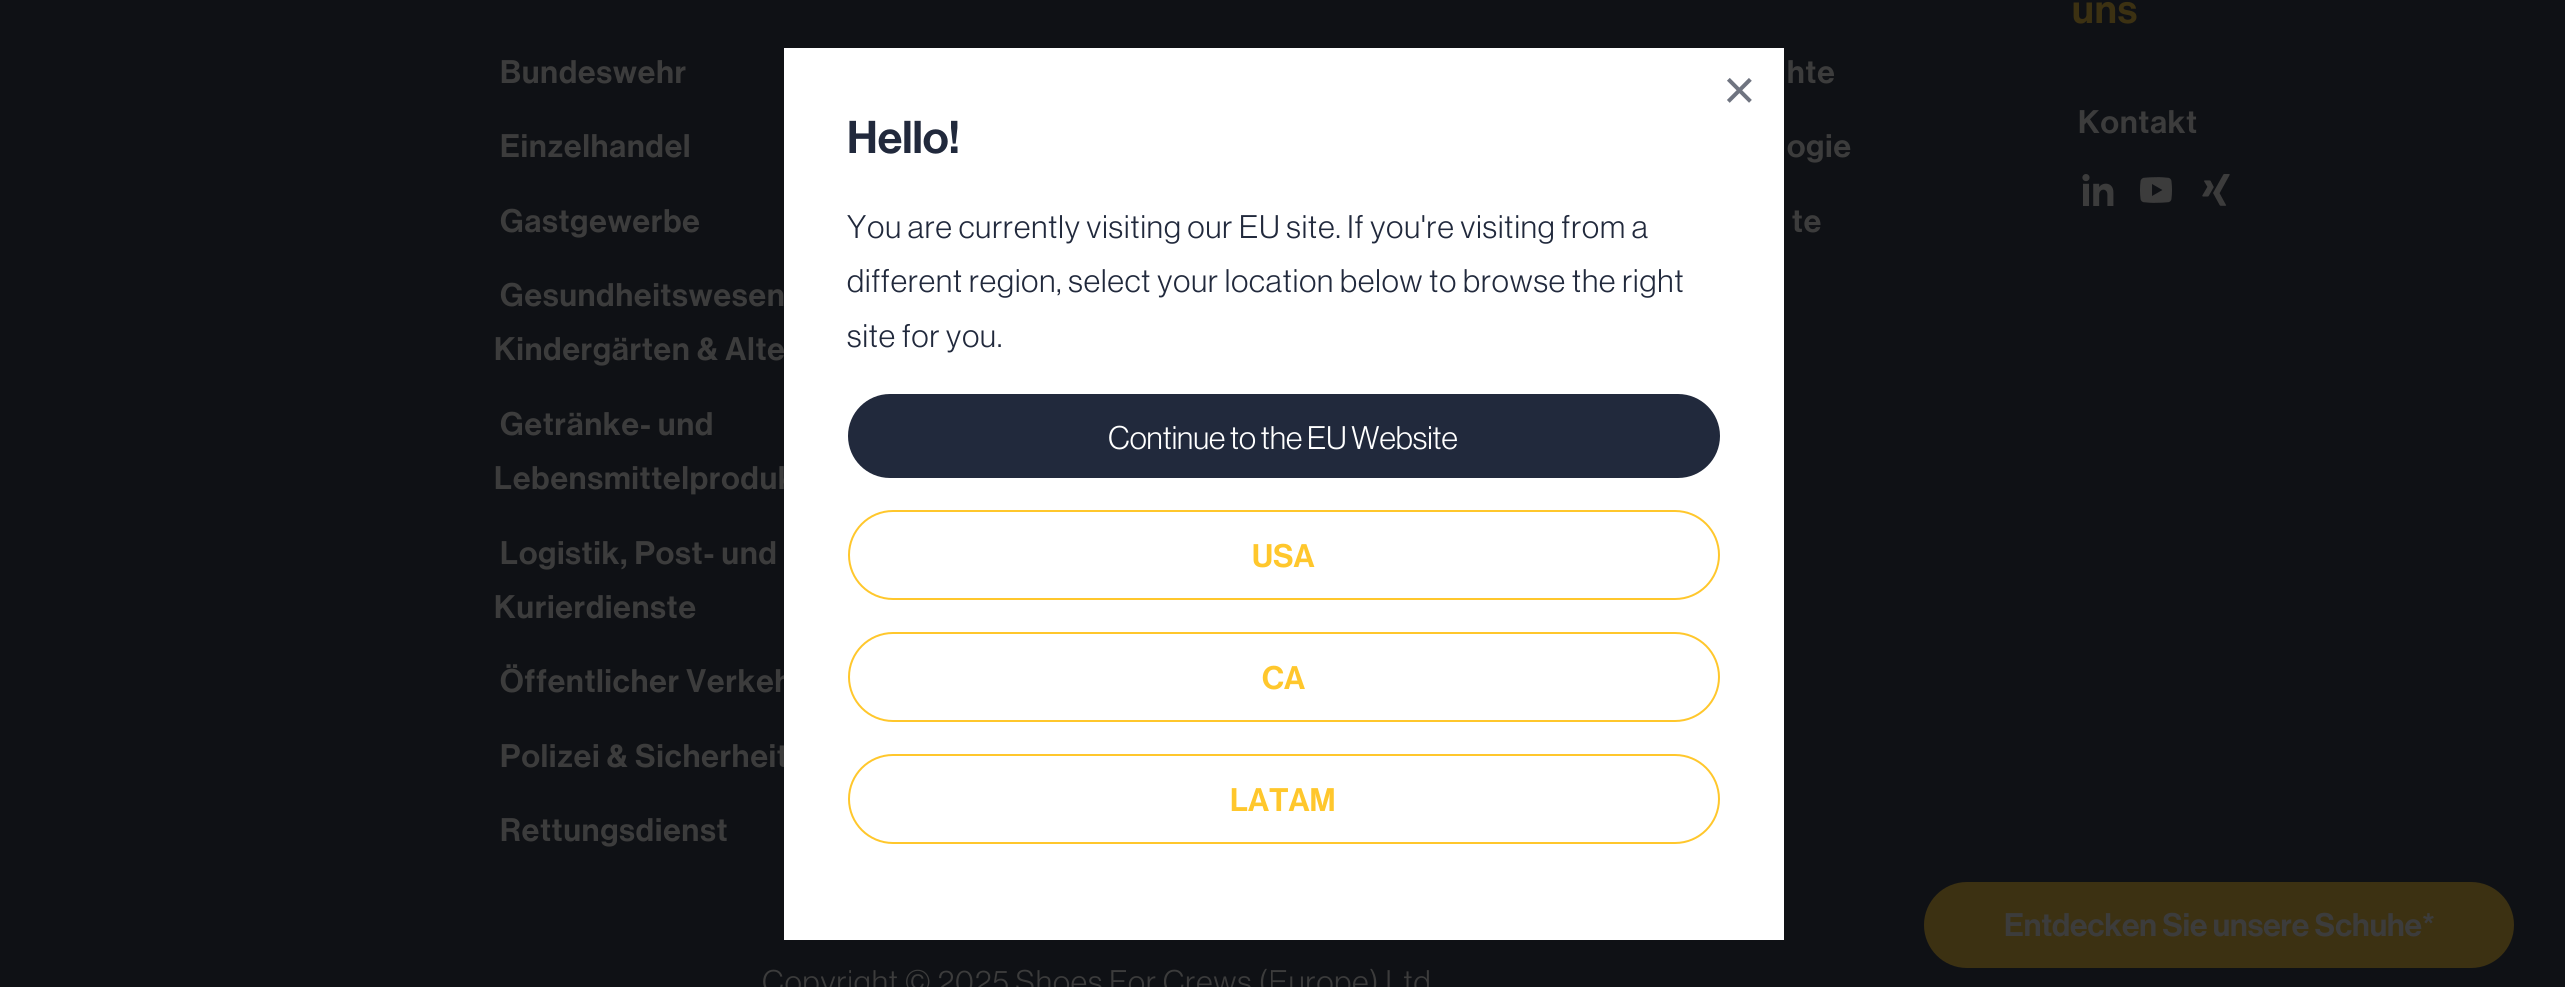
import math
import cairo



def draw_spaced(context, x, y, s, letter, word):
    context.move_to(x, y)
    for ch in s:
        context.show_text(ch)
        context.rel_move_to(letter + word * (ch == ' '), 0)


def rounded_rect(context, x, y, w, h, r):
    context.new_sub_path()
    for i, (u, v) in enumerate([(x + w - r, y + h - r), (x + r, y + h - r), (x + r, y + r), (x + w - r, y + r)]):
        context.arc(u, v, r, i * math.pi / 2, (i + 1) * math.pi / 2)
    context.close_path()


def draw_image(context, path, x, y, w, h):
    context.save()
    context.set_source_surface(cairo.ImageSurface.create_from_png(path), x, y)
    context.rectangle(x, y, w, h)
    context.fill()
    context.restore()


def draw(context):
    context.set_source_rgb(15 / 255, 17 / 255, 21 / 255)
    context.paint()
    draw_image(context, "images/1.png", 2082, 174, 32, 32)
    draw_image(context, "images/2.png", 2140, 177, 32, 26)
    draw_image(context, "images/3.png", 2202, 174, 28, 32)
    context.set_source_rgb(60 / 255, 49 / 255, 18 / 255)
    rounded_rect(context, 1924, 882, 590, 86, 43)
    context.fill()
    context.select_font_face("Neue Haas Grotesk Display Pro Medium")
    context.set_font_size(32)
    context.set_source_rgb(60 / 255, 60 / 255, 60 / 255)
    draw_spaced(context, 500, 83, "Bundeswehr", 1, 0)
    draw_spaced(context, 500, 157, "Einzelhandel", 1, 0)
    draw_spaced(context, 500, 232, "Gastgewerbe", 1, 0)
    draw_spaced(context, 500, 306, "Gesundheitswesen", 1, 0)
    draw_spaced(context, 494, 360, "Kindergärten & Alte", 1, 0)
    draw_spaced(context, 500, 435, "Getränke- und", 1, 0)
    draw_spaced(context, 494, 489, "Lebensmittelproduk", 1, 0)
    draw_spaced(context, 500, 564, "Logistik, Post- und", 1, 0)
    draw_spaced(context, 494, 618, "Kurierdienste", 1, 0)
    draw_spaced(context, 500, 692, "Öffentlicher Verkeh", 1, 0)
    draw_spaced(context, 500, 767, "Polizei & Sicherheit", 1, 0)
    draw_spaced(context, 500, 841, "Rettungsdienst", 1, 0)
    draw_spaced(context, 1787, 83, "hte", 1, 0)
    draw_spaced(context, 1787, 157, "ogie", 1, 0)
    draw_spaced(context, 1792, 232, "te", 1, 0)
    context.set_font_size(40)
    context.set_source_rgb(60 / 255, 49 / 255, 18 / 255)
    draw_spaced(context, 2072, 23, "uns", 1, 0)
    context.set_font_size(32)
    context.set_source_rgb(60 / 255, 60 / 255, 60 / 255)
    draw_spaced(context, 2078, 133, "Kontakt", 1, 0)
    context.select_font_face("Neue Haas Grotesk Display Pro")
    draw_spaced(context, 762, 993, "Copyright © 2025 Shoes For Crews (Europe) Ltd", 1, 0)
    context.set_source_rgb(1, 1, 1)
    context.rectangle(784, 48, 1000, 892)
    context.fill()
    context.select_font_face("Liberation Sans")
    context.set_font_size(56)
    context.set_source_rgb(111 / 255, 116 / 255, 128 / 255)
    context.move_to(1723, 109)
    context.show_text("×")
    context.select_font_face("Neue Haas Grotesk Display Pro Medium")
    context.set_font_size(45)
    context.set_source_rgb(33 / 255, 41 / 255, 60 / 255)
    context.move_to(847, 153)
    context.show_text("Hello!")
    context.select_font_face("Neue Haas Grotesk Display Pro")
    context.set_font_size(32)
    draw_spaced(context, 847, 238, "You are currently visiting our EU site. If you're visiting from a", 1, 0)
    draw_spaced(context, 847, 292, "different region, select your location below to browse the right", 1, 0)
    draw_spaced(context, 847, 347, "site for you.", 1, 0)
    rounded_rect(context, 848, 394, 872, 84, 42)
    context.fill()
    context.set_source_rgb(1, 1, 1)
    context.move_to(1108, 449)
    context.show_text("Continue to the EU Website")
    rounded_rect(context, 849, 511, 870, 88, 44)
    context.set_source_rgb(1, 199 / 255, 44 / 255)
    context.stroke()
    context.select_font_face("Neue Haas Grotesk Display Pro Medium")
    context.move_to(1252, 567)
    context.show_text("USA")
    rounded_rect(context, 849, 633, 870, 88, 44)
    context.stroke()
    context.move_to(1262, 689)
    context.show_text("CA")
    rounded_rect(context, 849, 755, 870, 88, 44)
    context.stroke()
    context.move_to(1230, 811)
    context.show_text("LATAM")
    context.set_source_rgb(60 / 255, 60 / 255, 60 / 255)
    context.move_to(2004, 936)
    context.show_text("Entdecken Sie unsere Schuhe*")


surface = cairo.ImageSurface(cairo.Format.RGB24, 2565, 987)
context = cairo.Context(surface)
options = cairo.FontOptions()
options.set_hint_metrics(cairo.HintMetrics.OFF)
options.set_hint_style(cairo.HintStyle.NONE)
context.set_font_options(options)
context.set_miter_limit(4)
draw(context)
surface.write_to_png("out.png")
